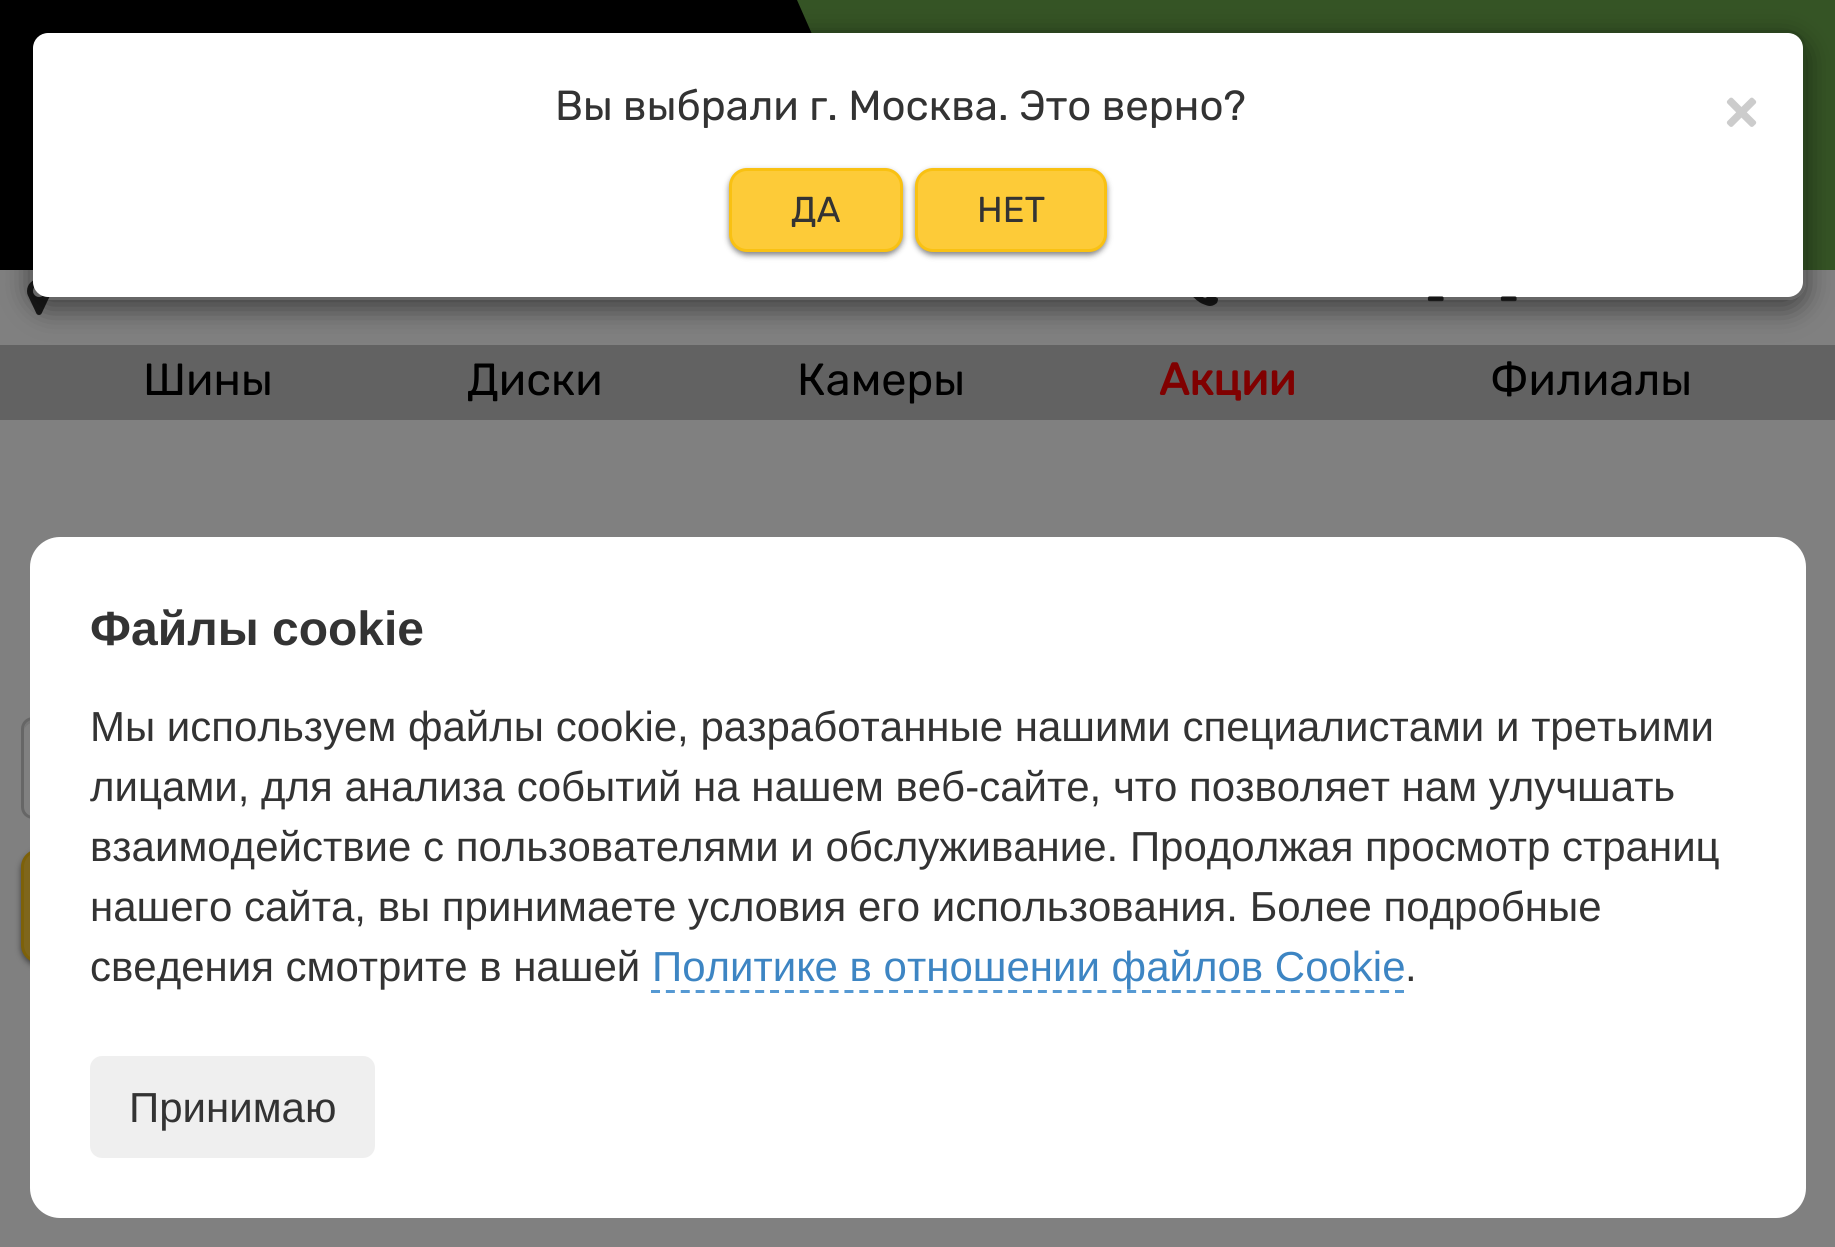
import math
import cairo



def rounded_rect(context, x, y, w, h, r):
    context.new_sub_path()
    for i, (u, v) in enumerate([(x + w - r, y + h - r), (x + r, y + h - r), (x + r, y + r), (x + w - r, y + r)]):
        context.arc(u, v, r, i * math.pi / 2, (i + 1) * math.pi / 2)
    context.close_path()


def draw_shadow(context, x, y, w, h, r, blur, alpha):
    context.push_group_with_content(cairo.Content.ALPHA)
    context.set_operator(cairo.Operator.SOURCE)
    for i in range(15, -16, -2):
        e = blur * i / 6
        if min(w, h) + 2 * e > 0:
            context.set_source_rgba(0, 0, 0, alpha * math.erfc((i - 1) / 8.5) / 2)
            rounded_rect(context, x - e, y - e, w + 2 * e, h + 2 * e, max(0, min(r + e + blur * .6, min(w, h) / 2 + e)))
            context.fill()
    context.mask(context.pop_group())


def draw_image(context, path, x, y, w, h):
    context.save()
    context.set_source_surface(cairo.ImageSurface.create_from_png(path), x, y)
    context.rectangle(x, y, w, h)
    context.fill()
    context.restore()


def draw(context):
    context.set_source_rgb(128 / 255, 128 / 255, 128 / 255)
    context.paint()
    context.set_source_rgb(0, 0, 0)
    context.rectangle(0, 0, 720, 270)
    context.fill()
    context.set_source_rgb(53 / 255, 84 / 255, 37 / 255)
    context.rectangle(797, 0, 1038, 270)
    context.fill()
    context.set_source_rgb(0, 0, 0)
    context.new_path()
    context.move_to(720, 0)
    context.line_to(797, 0)
    context.line_to(860, 143)
    context.line_to(797, 285)
    context.line_to(720, 285)
    context.close_path()
    context.fill()
    draw_image(context, "images/1.png", 27, 280, 23, 35)
    draw_image(context, "images/2.png", 1193, 297, 25, 9)
    context.set_source_rgb(98 / 255, 98 / 255, 98 / 255)
    context.rectangle(0, 345, 1835, 75)
    context.fill()
    context.save()
    context.set_fill_rule(cairo.FillRule.EVEN_ODD)
    context.new_path()
    context.move_to(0, 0)
    context.line_to(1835, 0)
    context.line_to(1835, 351)
    context.line_to(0, 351)
    context.close_path()
    context.move_to(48, 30)
    context.line_to(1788, 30)
    context.curve_to(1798, 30, 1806, 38, 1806, 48)
    context.line_to(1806, 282)
    context.curve_to(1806, 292, 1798, 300, 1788, 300)
    context.line_to(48, 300)
    context.curve_to(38, 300, 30, 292, 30, 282)
    context.line_to(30, 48)
    context.curve_to(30, 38, 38, 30, 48, 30)
    context.close_path()
    context.clip()
    context.set_source_rgb(0, 0, 0)
    draw_shadow(context, 30, 39, 1776, 270, 18, 13.5, 0.5)
    context.restore()
    context.set_source_rgb(1, 1, 1)
    rounded_rect(context, 33, 33, 1770, 264, 15)
    context.fill()
    context.set_source_rgb(118 / 255, 118 / 255, 118 / 255)
    context.new_path()
    context.move_to(33, 723)
    context.line_to(579, 723)
    context.curve_to(584, 723, 588, 727, 588, 732)
    context.curve_to(588, 726, 586, 720, 579, 720)
    context.line_to(33, 720)
    context.curve_to(26, 720, 24, 726, 24, 732)
    context.curve_to(24, 727, 28, 723, 33, 723)
    context.close_path()
    context.fill()
    rounded_rect(context, 22.5, 718.5, 567, 99, 10.5)
    context.set_source_rgb(102 / 255, 102 / 255, 102 / 255)
    context.set_line_width(3)
    context.stroke()
    context.set_source_rgb(0, 0, 0)
    draw_shadow(context, 21, 852, 489, 114, 18, 3, 0.5)
    context.set_source_rgb(127 / 255, 102 / 255, 28 / 255)
    rounded_rect(context, 22.5, 850.5, 486, 111, 16.5)
    context.fill_preserve()
    context.set_source_rgb(125 / 255, 97 / 255, 9 / 255)
    context.stroke()
    context.set_source_rgb(1, 1, 1)
    rounded_rect(context, 30, 537, 1776, 681, 30)
    context.fill()
    context.new_path()
    context.move_to(651, 991.5)
    context.line_to(1404, 991.5)
    context.set_source_rgb(85 / 255, 153 / 255, 211 / 255)
    context.set_dash([9, 5.88])
    context.stroke()
    context.set_source_rgb(239 / 255, 239 / 255, 239 / 255)
    rounded_rect(context, 90, 1056, 285, 102, 12)
    context.fill()
    context.select_font_face("Rubik", cairo.FontSlant.NORMAL, cairo.FontWeight.BOLD)
    context.set_font_size(42)
    context.set_source_rgb(26 / 255, 26 / 255, 26 / 255)
    context.move_to(1425, 312)
    context.show_text("-")
    context.move_to(1498, 312)
    context.show_text("-")
    rounded_rect(context, 31.5, 31.5, 1773, 267, 16.5)
    context.set_source_rgba(0, 0, 0, 0.2)
    context.set_dash([])
    context.stroke()
    context.set_source_rgb(0, 0, 0)
    draw_shadow(context, 915, 171, 192, 84, 18, 3, 0.5)
    context.set_source_rgb(253 / 255, 203 / 255, 56 / 255)
    rounded_rect(context, 916.5, 169.5, 189, 81, 16.5)
    context.fill_preserve()
    context.set_source_rgb(249 / 255, 193 / 255, 18 / 255)
    context.stroke()
    context.select_font_face("Rubik")
    context.set_font_size(36)
    context.set_source_rgb(51 / 255, 51 / 255, 51 / 255)
    context.move_to(977, 222)
    context.show_text("НЕТ")
    context.set_source_rgb(0, 0, 0)
    draw_shadow(context, 729, 171, 174, 84, 18, 3, 0.5)
    context.set_source_rgb(253 / 255, 203 / 255, 56 / 255)
    rounded_rect(context, 730.5, 169.5, 171, 81, 16.5)
    context.fill_preserve()
    context.set_source_rgb(249 / 255, 193 / 255, 18 / 255)
    context.stroke()
    context.set_source_rgb(51 / 255, 51 / 255, 51 / 255)
    context.move_to(791, 222)
    context.show_text("ДА")
    context.select_font_face("Rubik", cairo.FontSlant.NORMAL, cairo.FontWeight.BOLD)
    context.set_font_size(63)
    context.set_source_rgb(204 / 255, 204 / 255, 204 / 255)
    context.move_to(1723, 132)
    context.show_text("×")
    context.select_font_face("Rubik")
    context.set_font_size(42)
    context.set_source_rgb(51 / 255, 51 / 255, 51 / 255)
    context.move_to(555, 120)
    context.show_text("Вы выбрали г. Москва. Это верно?")
    context.set_font_size(45)
    context.set_source_rgb(0, 0, 0)
    context.move_to(143, 395)
    context.show_text("Шины")
    context.move_to(467, 395)
    context.show_text("Диски")
    context.move_to(797, 395)
    context.show_text("Камеры")
    context.select_font_face("Rubik", cairo.FontSlant.NORMAL, cairo.FontWeight.BOLD)
    context.set_source_rgb(128 / 255, 0, 0)
    context.move_to(1159, 395)
    context.show_text("Акции")
    context.select_font_face("Rubik")
    context.set_source_rgb(0, 0, 0)
    context.move_to(1490, 395)
    context.show_text("Филиалы")
    context.select_font_face("Liberation Sans", cairo.FontSlant.NORMAL, cairo.FontWeight.BOLD)
    context.set_font_size(48)
    context.set_source_rgb(51 / 255, 51 / 255, 51 / 255)
    context.move_to(90, 645)
    context.show_text("Файлы cookie")
    context.select_font_face("Liberation Sans")
    context.set_font_size(42)
    context.move_to(90, 741)
    context.show_text("Мы используем файлы cookie, разработанные нашими специалистами и третьими")
    context.move_to(90, 801)
    context.show_text("лицами, для анализа событий на нашем веб-сайте, что позволяет нам улучшать")
    context.move_to(90, 861)
    context.show_text("взаимодействие с пользователями и обслуживание. Продолжая просмотр страниц")
    context.move_to(90, 921)
    context.show_text("нашего сайта, вы принимаете условия его использования. Более подробные")
    context.move_to(90, 981)
    context.show_text("сведения смотрите в нашей")
    context.set_source_rgb(61 / 255, 133 / 255, 195 / 255)
    context.move_to(652, 981)
    context.show_text("Политике в отношении файлов Cookie")
    context.set_source_rgb(51 / 255, 51 / 255, 51 / 255)
    context.move_to(1405, 981)
    context.show_text(".")
    context.move_to(129, 1122)
    context.show_text("Принимаю")


surface = cairo.ImageSurface(cairo.Format.RGB24, 1835, 1247)
context = cairo.Context(surface)
options = cairo.FontOptions()
options.set_hint_metrics(cairo.HintMetrics.OFF)
options.set_hint_style(cairo.HintStyle.NONE)
context.set_font_options(options)
context.set_miter_limit(4)
draw(context)
surface.write_to_png("out.png")
